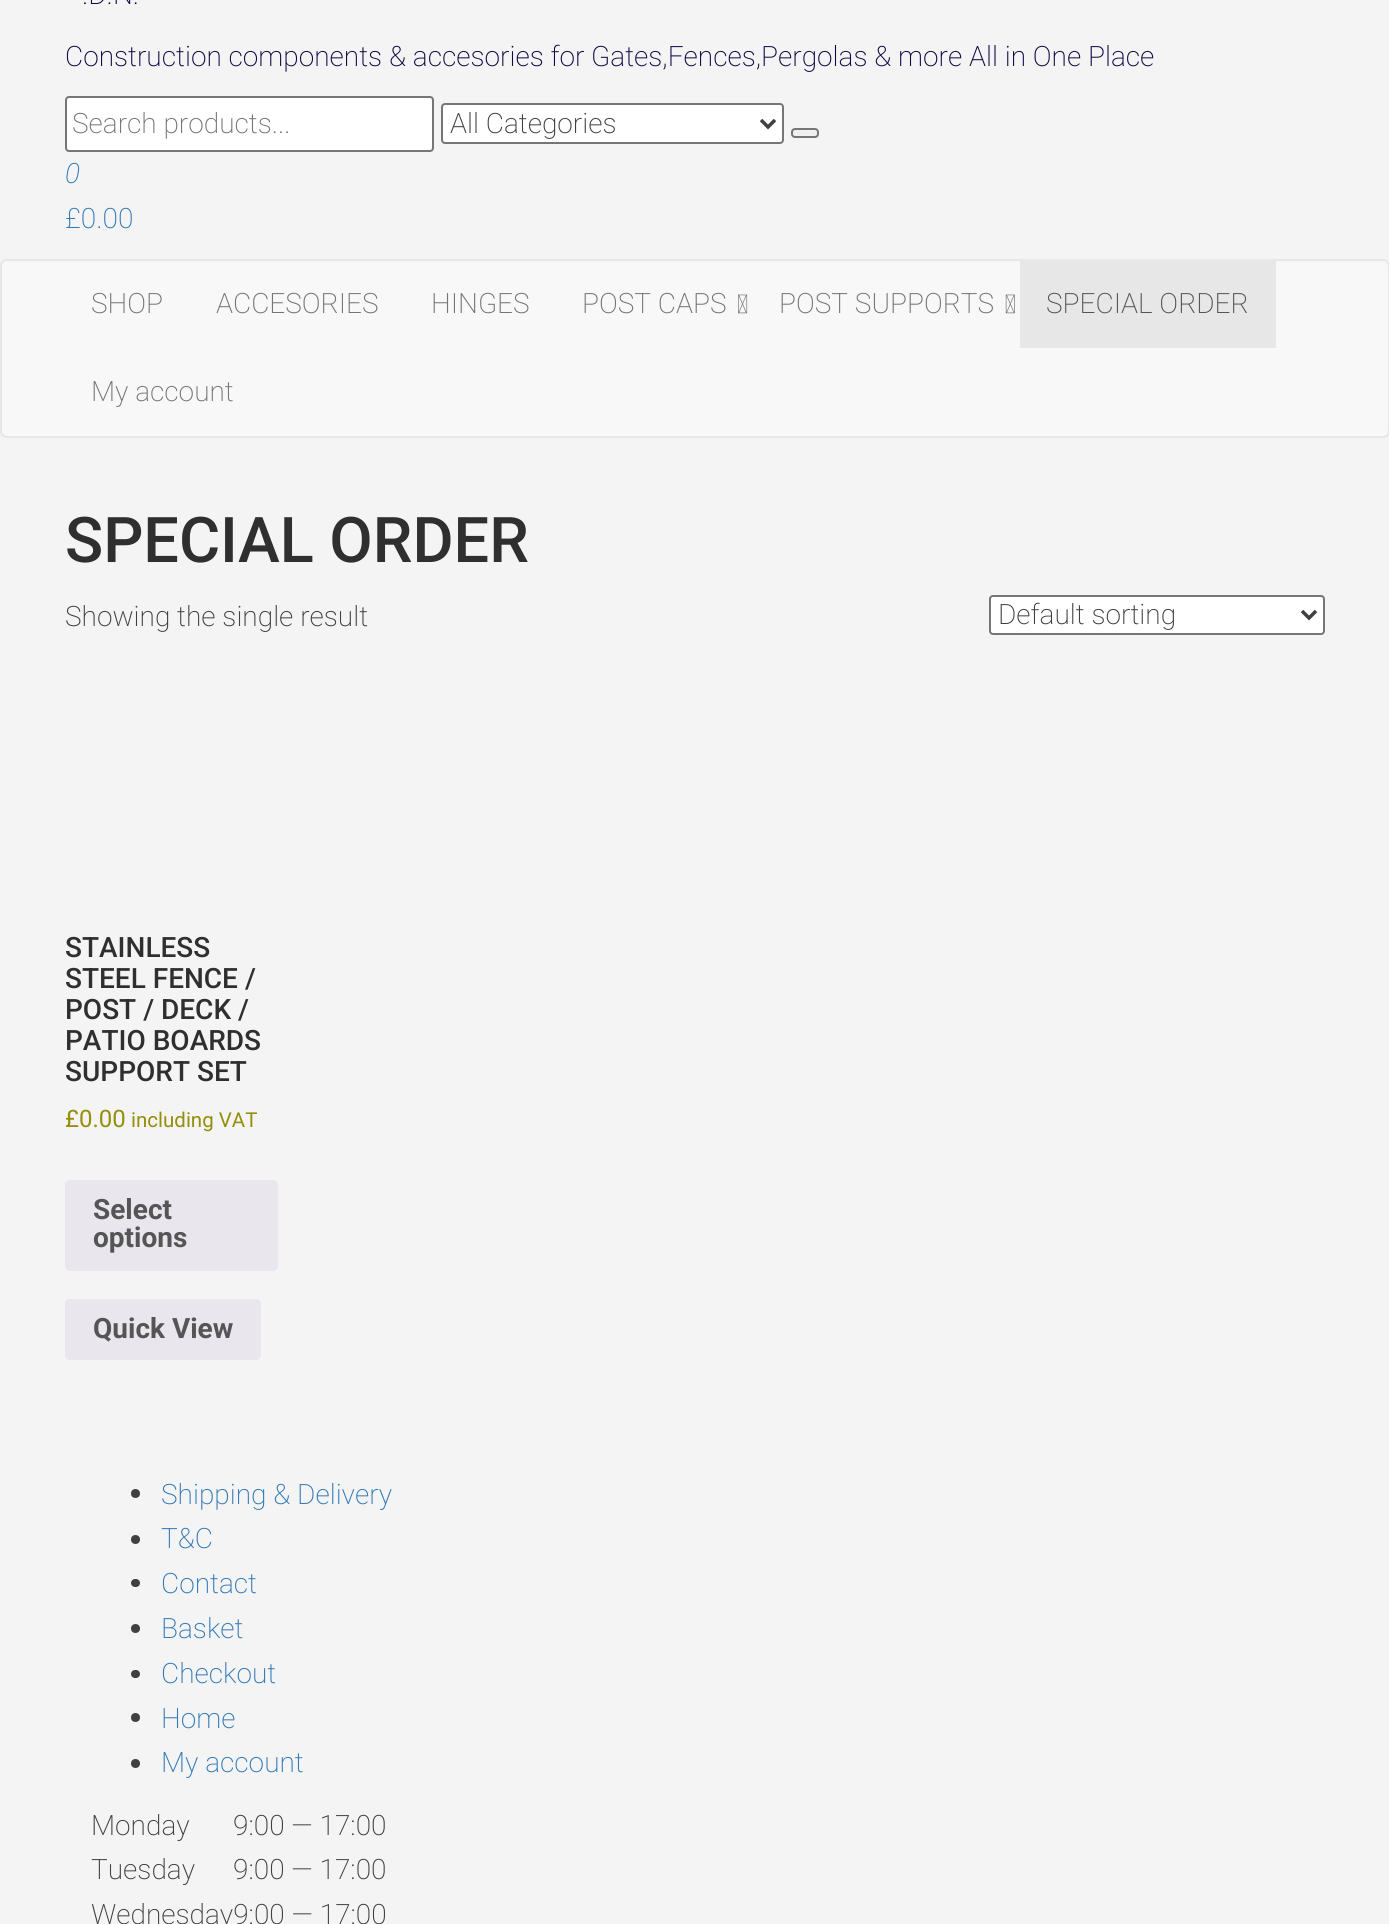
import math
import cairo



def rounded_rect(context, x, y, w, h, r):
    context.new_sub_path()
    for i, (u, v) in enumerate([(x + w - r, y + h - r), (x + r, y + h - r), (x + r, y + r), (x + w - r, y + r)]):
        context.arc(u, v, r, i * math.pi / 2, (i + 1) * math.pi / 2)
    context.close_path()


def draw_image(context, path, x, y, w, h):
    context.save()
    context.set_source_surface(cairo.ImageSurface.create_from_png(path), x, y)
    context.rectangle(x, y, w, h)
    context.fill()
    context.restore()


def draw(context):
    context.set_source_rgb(244 / 255, 244 / 255, 244 / 255)
    context.paint()
    context.set_source_rgb(1, 1, 1)
    rounded_rect(context, 66, 97, 367, 54, 3)
    context.fill_preserve()
    context.set_source_rgb(118 / 255, 118 / 255, 118 / 255)
    context.stroke()
    context.set_source_rgb(1, 1, 1)
    rounded_rect(context, 442, 104, 341, 39, 3)
    context.fill_preserve()
    context.set_source_rgb(118 / 255, 118 / 255, 118 / 255)
    context.stroke()
    context.new_path()
    context.move_to(761, 120)
    context.line_to(768, 127)
    context.line_to(775, 120)
    context.set_source_rgb(64 / 255, 64 / 255, 64 / 255)
    context.set_line_width(3.5)
    context.stroke()
    context.set_source_rgb(239 / 255, 239 / 255, 239 / 255)
    rounded_rect(context, 792, 129, 26, 8, 3)
    context.fill_preserve()
    context.set_source_rgb(118 / 255, 118 / 255, 118 / 255)
    context.set_line_width(2)
    context.stroke()
    context.set_source_rgb(248 / 255, 248 / 255, 248 / 255)
    rounded_rect(context, 1, 260, 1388, 177, 6)
    context.fill_preserve()
    context.set_source_rgb(231 / 255, 231 / 255, 231 / 255)
    context.stroke()
    draw_image(context, "images/1.png", 738, 294, 10, 20)
    draw_image(context, "images/2.png", 1005, 294, 10, 20)
    context.rectangle(1020, 261, 256, 87)
    context.fill()
    context.set_source_rgb(1, 1, 1)
    rounded_rect(context, 990, 596, 334, 38, 3)
    context.fill_preserve()
    context.set_source_rgb(118 / 255, 118 / 255, 118 / 255)
    context.stroke()
    context.new_path()
    context.move_to(1302, 611)
    context.line_to(1309, 618)
    context.line_to(1316, 611)
    context.set_source_rgb(64 / 255, 64 / 255, 64 / 255)
    context.set_line_width(3.5)
    context.stroke()
    context.set_source_rgb(233 / 255, 230 / 255, 237 / 255)
    rounded_rect(context, 65, 1180, 213, 91, 5)
    context.fill()
    rounded_rect(context, 65, 1299, 196, 61, 5)
    context.fill()
    context.set_source_rgb(64 / 255, 64 / 255, 64 / 255)
    context.arc(135.5, 1493.5, 4.5, 0, 2 * math.pi)
    context.fill()
    context.arc(135.5, 1539.5, 4.5, 0, 2 * math.pi)
    context.fill()
    rounded_rect(context, 131, 1579, 9, 8, 4)
    context.fill()
    context.arc(135.5, 1628.5, 4.5, 0, 2 * math.pi)
    context.fill()
    rounded_rect(context, 131, 1670, 9, 8, 4)
    context.fill()
    context.arc(135.5, 1717.5, 4.5, 0, 2 * math.pi)
    context.fill()
    context.arc(135.5, 1763.5, 4.5, 0, 2 * math.pi)
    context.fill()
    context.select_font_face("Roboto ExtraLight")
    context.set_font_size(28)
    context.set_source_rgb(18 / 255, 9 / 255, 68 / 255)
    context.move_to(82, 4)
    context.show_text(".D.N.")
    context.move_to(65, 66)
    context.show_text("Construction components & accesories for Gates,Fences,Pergolas & more All in One Place")
    context.set_source_rgb(117 / 255, 117 / 255, 117 / 255)
    context.move_to(72, 133)
    context.show_text("Search products...")
    context.set_source_rgb(64 / 255, 64 / 255, 64 / 255)
    context.move_to(450, 133)
    context.show_text("All Categories")
    context.select_font_face("Roboto ExtraLight", cairo.FontSlant.ITALIC)
    context.set_source_rgb(51 / 255, 122 / 255, 183 / 255)
    context.move_to(65, 183)
    context.show_text("0")
    context.select_font_face("Roboto ExtraLight")
    context.move_to(65, 228)
    context.show_text("£0.00")
    context.set_source_rgb(117 / 255, 117 / 255, 117 / 255)
    context.move_to(91, 313)
    context.show_text("SHOP")
    context.move_to(216, 313)
    context.show_text("ACCESORIES")
    context.move_to(431, 313)
    context.show_text("HINGES")
    context.move_to(582, 313)
    context.show_text("POST CAPS")
    context.move_to(779, 313)
    context.show_text("POST SUPPORTS")
    context.set_source_rgb(85 / 255, 85 / 255, 85 / 255)
    context.move_to(1046, 313)
    context.show_text("SPECIAL ORDER")
    context.set_source_rgb(117 / 255, 117 / 255, 117 / 255)
    context.move_to(91, 401)
    context.show_text("My account")
    context.select_font_face("Roboto Medium")
    context.set_font_size(63)
    context.set_source_rgb(48 / 255, 47 / 255, 47 / 255)
    context.move_to(65, 562)
    context.show_text("SPECIAL ORDER")
    context.select_font_face("Roboto ExtraLight")
    context.set_font_size(28)
    context.set_source_rgb(64 / 255, 64 / 255, 64 / 255)
    context.move_to(65, 626)
    context.show_text("Showing the single result")
    context.move_to(998, 624)
    context.show_text("Default sorting")
    context.select_font_face("Roboto Medium")
    context.set_source_rgb(48 / 255, 47 / 255, 47 / 255)
    context.move_to(65, 957)
    context.show_text("STAINLESS")
    context.move_to(65, 988)
    context.show_text("STEEL FENCE /")
    context.move_to(65, 1019)
    context.show_text("POST / DECK /")
    context.move_to(65, 1050)
    context.show_text("PATIO BOARDS")
    context.move_to(65, 1081)
    context.show_text("SUPPORT SET")
    context.select_font_face("Roboto")
    context.set_font_size(24)
    context.set_source_rgb(149 / 255, 142 / 255, 9 / 255)
    context.move_to(65, 1127)
    context.show_text("£0.00")
    context.set_font_size(20.5)
    context.move_to(131, 1127)
    context.show_text("including VAT")
    context.select_font_face("Roboto", cairo.FontSlant.NORMAL, cairo.FontWeight.BOLD)
    context.set_font_size(28)
    context.set_source_rgb(85 / 255, 85 / 255, 85 / 255)
    context.move_to(93, 1219)
    context.show_text("Select")
    context.move_to(93, 1247)
    context.show_text("options")
    context.move_to(93, 1338)
    context.show_text("Quick View")
    context.select_font_face("Roboto ExtraLight")
    context.set_source_rgb(51 / 255, 122 / 255, 183 / 255)
    context.move_to(161, 1504)
    context.show_text("Shipping & Delivery")
    context.move_to(161, 1548)
    context.show_text("T&C")
    context.move_to(161, 1593)
    context.show_text("Contact")
    context.move_to(161, 1638)
    context.show_text("Basket")
    context.move_to(161, 1683)
    context.show_text("Checkout")
    context.move_to(161, 1728)
    context.show_text("Home")
    context.move_to(161, 1772)
    context.show_text("My account")
    context.set_source_rgb(64 / 255, 64 / 255, 64 / 255)
    context.move_to(91, 1835)
    context.show_text("Monday")
    context.move_to(233, 1835)
    context.show_text("9:00 — 17:00")
    context.move_to(91, 1879)
    context.show_text("Tuesday")
    context.move_to(233, 1879)
    context.show_text("9:00 — 17:00")
    context.move_to(91, 1924)
    context.show_text("Wednesday9:00 — 17:00")


surface = cairo.ImageSurface(cairo.Format.RGB24, 1389, 1924)
context = cairo.Context(surface)
options = cairo.FontOptions()
options.set_hint_metrics(cairo.HintMetrics.OFF)
options.set_hint_style(cairo.HintStyle.NONE)
context.set_font_options(options)
context.set_miter_limit(4)
draw(context)
surface.write_to_png("out.png")
